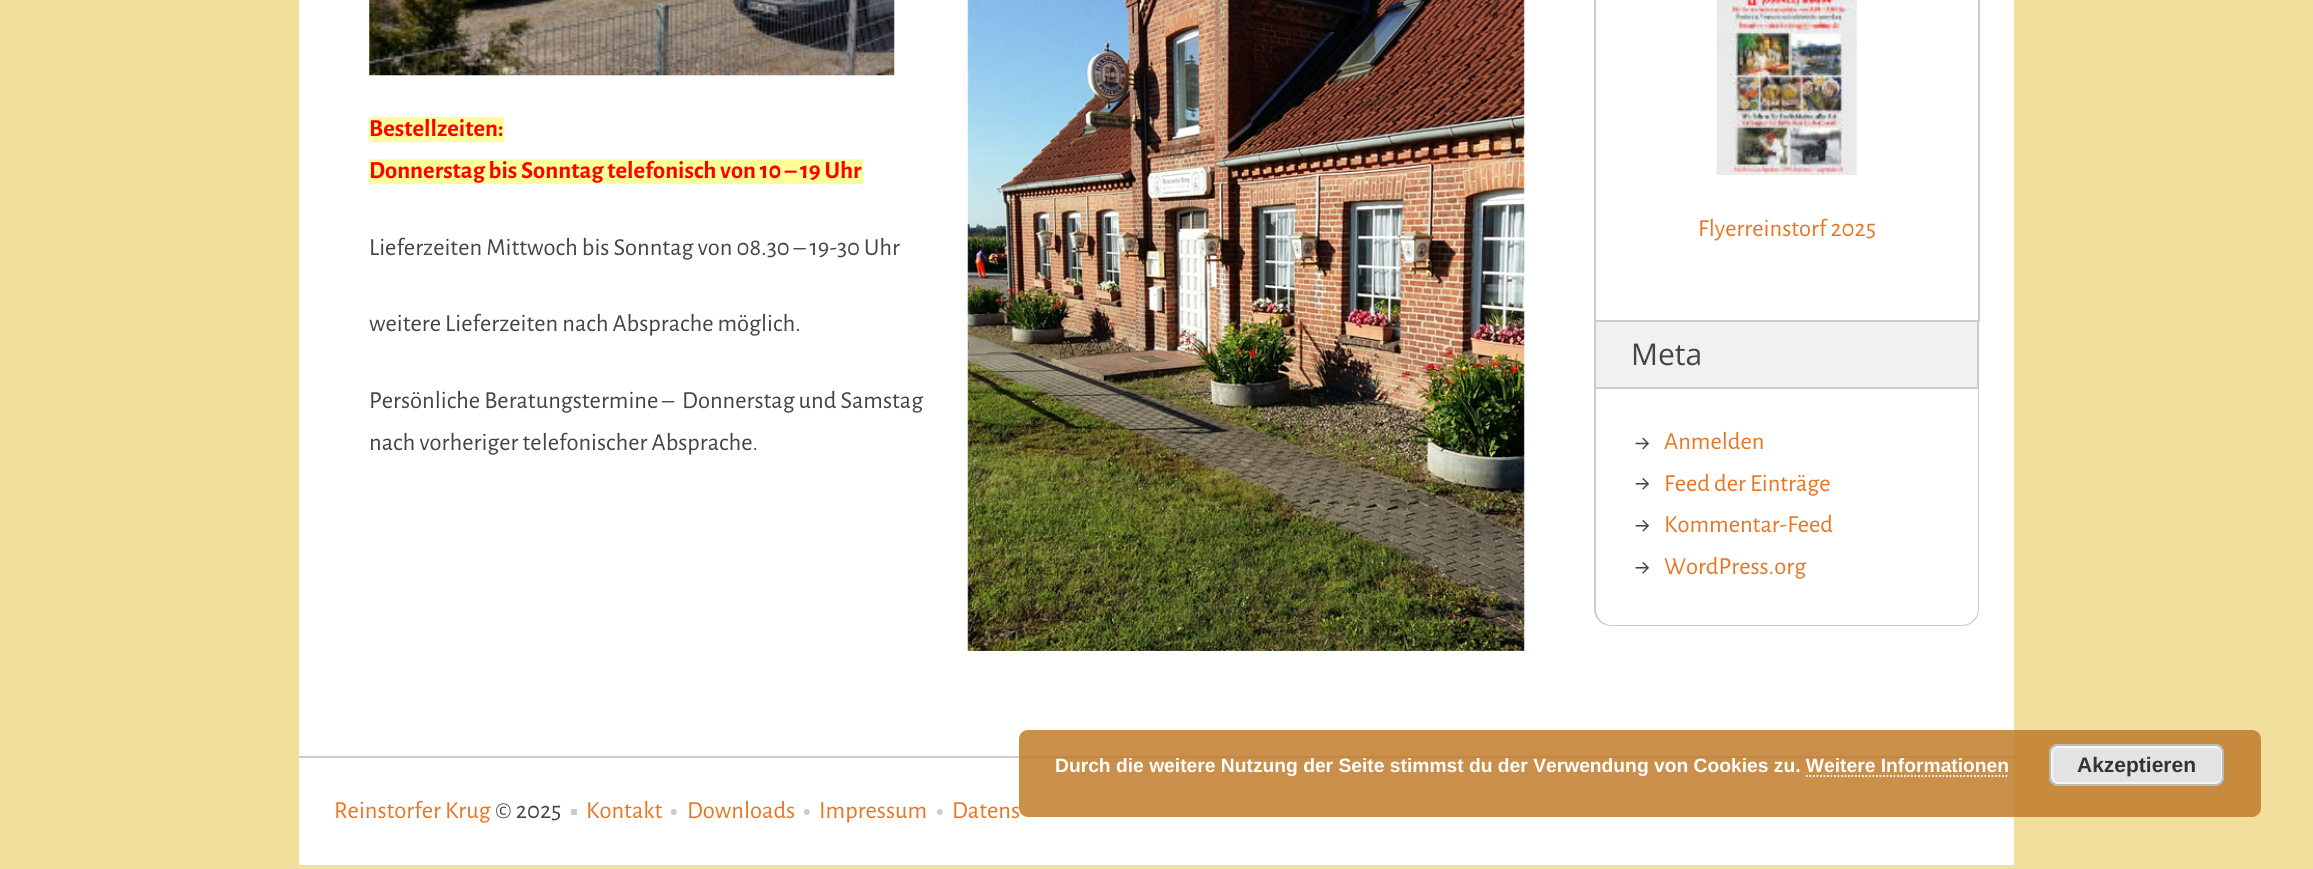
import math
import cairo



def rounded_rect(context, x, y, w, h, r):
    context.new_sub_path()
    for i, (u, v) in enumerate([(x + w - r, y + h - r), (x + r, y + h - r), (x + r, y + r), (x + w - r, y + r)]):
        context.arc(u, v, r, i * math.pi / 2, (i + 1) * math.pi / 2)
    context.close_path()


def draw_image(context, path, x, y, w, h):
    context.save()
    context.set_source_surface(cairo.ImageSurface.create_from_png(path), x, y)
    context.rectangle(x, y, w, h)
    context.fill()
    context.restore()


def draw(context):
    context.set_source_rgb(242 / 255, 223 / 255, 155 / 255)
    context.paint()
    context.set_source_rgb(1, 1, 1)
    context.rectangle(299, 0, 1715, 865)
    context.fill()
    draw_image(context, "images/1.png", 369, 0, 526, 76)
    draw_image(context, "images/2.png", 967, 0, 558, 651)
    context.set_source_rgb(1, 1, 153 / 255)
    context.rectangle(369, 117, 135, 25)
    context.fill()
    context.rectangle(369, 159, 494, 25)
    context.fill()
    context.set_source_rgb(204 / 255, 204 / 255, 204 / 255)
    context.rectangle(1978, 0, 2, 322)
    context.fill()
    context.rectangle(1594, 0, 2, 322)
    context.fill()
    draw_image(context, "images/3.png", 1716, 0, 141, 175)
    context.set_fill_rule(cairo.FillRule.EVEN_ODD)
    context.new_path()
    context.move_to(1594, 322)
    context.line_to(1979, 322)
    context.line_to(1979, 609)
    context.curve_to(1979, 619, 1971, 626, 1962, 626)
    context.line_to(1612, 626)
    context.curve_to(1602, 626, 1594, 619, 1594, 609)
    context.close_path()
    context.move_to(1596, 322)
    context.line_to(1978, 322)
    context.line_to(1978, 609)
    context.curve_to(1978, 618, 1970, 625, 1962, 625)
    context.line_to(1612, 625)
    context.curve_to(1603, 625, 1596, 618, 1596, 609)
    context.close_path()
    context.fill()
    context.set_source_rgb(241 / 255, 241 / 255, 241 / 255)
    context.rectangle(1595, 321, 383, 67)
    context.fill_preserve()
    context.set_source_rgb(204 / 255, 204 / 255, 204 / 255)
    context.stroke()
    draw_image(context, "images/4.png", 1635, 437, 15, 13)
    draw_image(context, "images/5.png", 1635, 478, 15, 12)
    draw_image(context, "images/5.png", 1635, 520, 15, 12)
    draw_image(context, "images/5.png", 1635, 562, 15, 12)
    context.rectangle(299, 756, 1715, 2)
    context.fill()
    context.rectangle(571, 809, 6, 6)
    context.fill()
    draw_image(context, "images/6.png", 670, 809, 7, 6)
    draw_image(context, "images/6.png", 803, 809, 7, 6)
    draw_image(context, "images/6.png", 936, 809, 7, 6)
    context.set_source_rgba(193 / 255, 124 / 255, 44 / 255, 0.85)
    rounded_rect(context, 1019, 730, 1242, 87, 9)
    context.fill()
    context.set_source_rgb(227 / 255, 227 / 255, 227 / 255)
    rounded_rect(context, 2049, 744, 175, 42, 9)
    context.fill()
    rounded_rect(context, 2052, 747, 170, 36, 6)
    context.set_source_rgb(246 / 255, 246 / 255, 246 / 255)
    context.stroke()
    rounded_rect(context, 2050, 745, 173, 40, 8)
    context.set_source_rgb(187 / 255, 187 / 255, 187 / 255)
    context.stroke()
    context.new_path()
    context.move_to(1806, 776)
    context.line_to(2009, 776)
    context.set_source_rgb(1, 1, 1)
    context.set_line_width(1.8)
    context.set_dash([1.75, 1.75])
    context.stroke()
    context.select_font_face("Alegreya Sans", cairo.FontSlant.NORMAL, cairo.FontWeight.BOLD)
    context.set_font_size(24.5)
    context.set_source_rgb(1, 0, 0)
    context.move_to(369, 136)
    context.show_text("Bestellzeiten:")
    context.move_to(369, 178)
    context.show_text("Donnerstag bis Sonntag telefonisch von 10 – 19 Uhr")
    context.select_font_face("Alegreya Sans")
    context.set_source_rgb(68 / 255, 68 / 255, 68 / 255)
    context.move_to(369, 255)
    context.show_text("Lieferzeiten Mittwoch bis Sonntag von 08.30 – 19-30 Uhr")
    context.move_to(369, 331)
    context.show_text("weitere Lieferzeiten nach Absprache möglich.")
    context.move_to(369, 408)
    context.show_text("Persönliche Beratungstermine –  Donnerstag und Samstag")
    context.move_to(369, 450)
    context.show_text("nach vorheriger telefonischer Absprache.")
    context.set_source_rgb(234 / 255, 117 / 255, 33 / 255)
    context.move_to(1698, 236)
    context.show_text("Flyerreinstorf 2025")
    context.select_font_face("Open Sans")
    context.set_font_size(30)
    context.set_source_rgb(68 / 255, 68 / 255, 68 / 255)
    context.move_to(1631, 365)
    context.show_text("Meta")
    context.select_font_face("Alegreya Sans")
    context.set_font_size(24.5)
    context.set_source_rgb(234 / 255, 117 / 255, 33 / 255)
    context.move_to(1664, 449)
    context.show_text("Anmelden")
    context.move_to(1664, 491)
    context.show_text("Feed der Einträge")
    context.move_to(1664, 532)
    context.show_text("Kommentar-Feed")
    context.move_to(1664, 574)
    context.show_text("WordPress.org")
    context.move_to(334, 818)
    context.show_text("Reinstorfer Krug")
    context.set_source_rgb(68 / 255, 68 / 255, 68 / 255)
    context.move_to(495, 818)
    context.show_text("© 2025")
    context.set_source_rgb(234 / 255, 117 / 255, 33 / 255)
    context.move_to(586, 818)
    context.show_text("Kontakt")
    context.move_to(687, 818)
    context.show_text("Downloads")
    context.move_to(819, 818)
    context.show_text("Impressum")
    context.move_to(952, 818)
    context.show_text("Datens")
    context.select_font_face("Liberation Sans", cairo.FontSlant.NORMAL, cairo.FontWeight.BOLD)
    context.set_font_size(19.25)
    context.set_source_rgb(1, 1, 1)
    context.move_to(1055, 772)
    context.show_text("Durch die weitere Nutzung der Seite stimmst du der Verwendung von Cookies zu. Weitere Informationen")
    context.set_font_size(21)
    context.set_source_rgb(51 / 255, 51 / 255, 51 / 255)
    context.move_to(2077, 772)
    context.show_text("Akzeptieren")


surface = cairo.ImageSurface(cairo.Format.RGB24, 2313, 869)
context = cairo.Context(surface)
options = cairo.FontOptions()
options.set_hint_metrics(cairo.HintMetrics.OFF)
options.set_hint_style(cairo.HintStyle.NONE)
context.set_font_options(options)
context.set_miter_limit(4)
draw(context)
surface.write_to_png("out.png")
